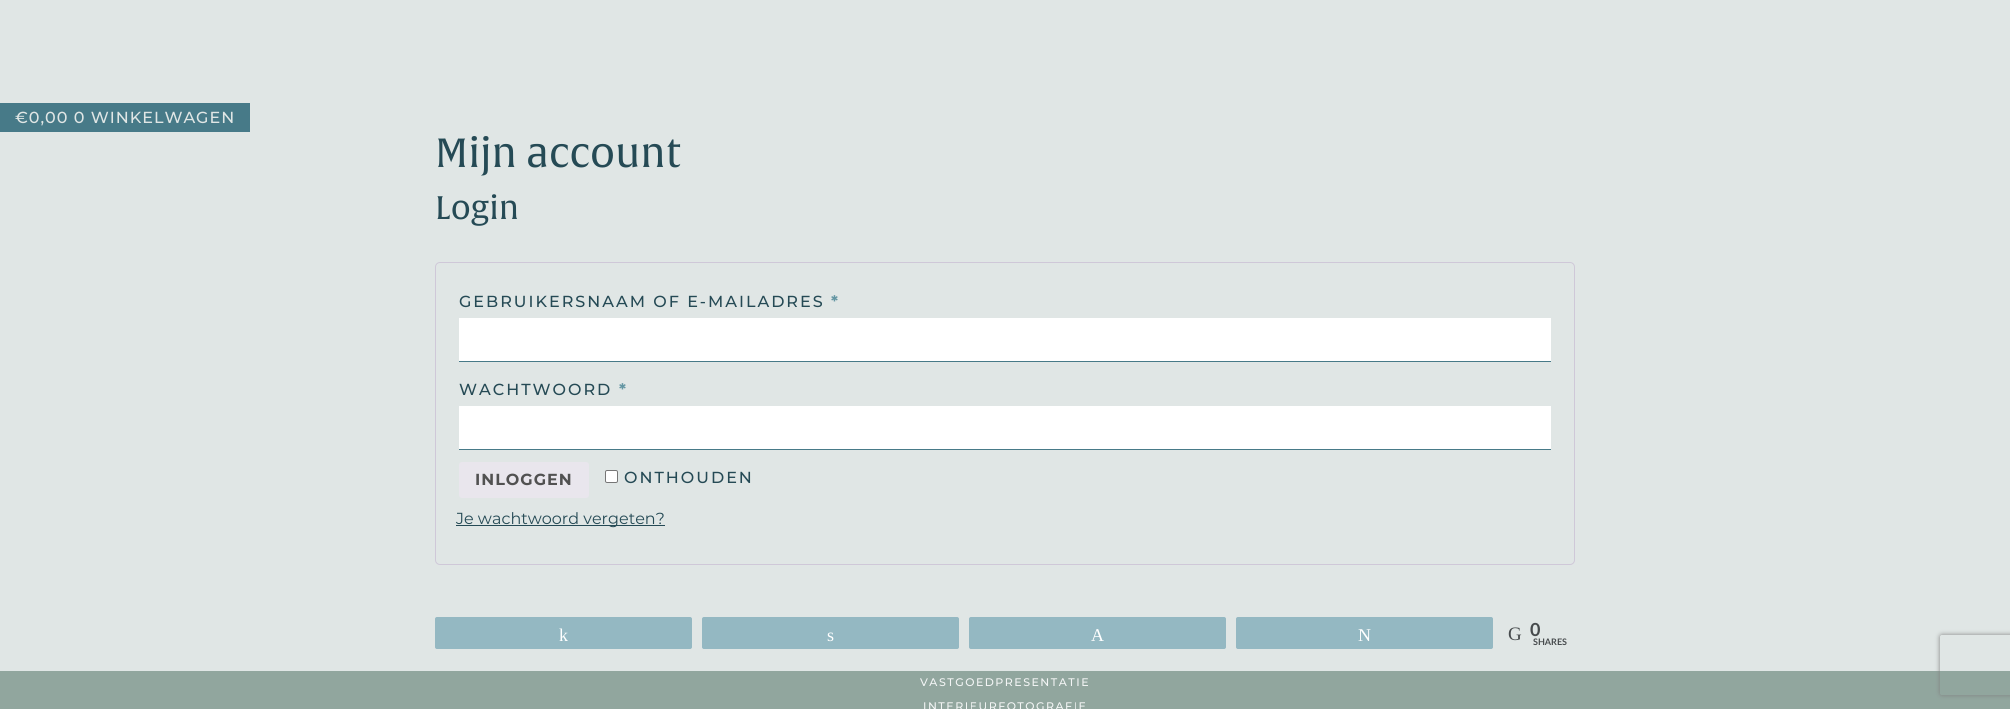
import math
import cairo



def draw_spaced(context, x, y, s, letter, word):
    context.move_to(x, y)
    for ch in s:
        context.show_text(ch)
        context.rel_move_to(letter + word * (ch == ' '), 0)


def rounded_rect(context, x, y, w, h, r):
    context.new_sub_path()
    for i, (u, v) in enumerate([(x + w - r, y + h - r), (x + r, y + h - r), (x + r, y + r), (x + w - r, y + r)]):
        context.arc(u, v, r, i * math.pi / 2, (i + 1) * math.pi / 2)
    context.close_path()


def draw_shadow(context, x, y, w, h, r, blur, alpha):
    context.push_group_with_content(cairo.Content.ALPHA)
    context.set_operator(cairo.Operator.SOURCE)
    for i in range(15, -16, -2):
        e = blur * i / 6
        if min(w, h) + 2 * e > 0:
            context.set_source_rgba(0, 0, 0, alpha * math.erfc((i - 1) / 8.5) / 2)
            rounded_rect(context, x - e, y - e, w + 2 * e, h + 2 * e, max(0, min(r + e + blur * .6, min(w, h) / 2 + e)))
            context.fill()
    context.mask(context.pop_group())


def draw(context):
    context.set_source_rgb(224 / 255, 230 / 255, 229 / 255)
    context.paint()
    context.set_source_rgb(71 / 255, 122 / 255, 136 / 255)
    context.rectangle(0, 103, 250, 29)
    context.fill()
    rounded_rect(context, 435.5, 262.5, 1139, 302, 4.5)
    context.set_source_rgb(207 / 255, 200 / 255, 216 / 255)
    context.set_line_width(1)
    context.stroke()
    context.set_source_rgb(1, 1, 1)
    context.rectangle(459, 318, 1092, 43)
    context.fill()
    context.set_source_rgb(71 / 255, 122 / 255, 136 / 255)
    context.rectangle(459, 361, 1092, 1)
    context.fill()
    context.set_source_rgb(1, 1, 1)
    context.rectangle(459, 406, 1092, 43)
    context.fill()
    context.set_source_rgb(71 / 255, 122 / 255, 136 / 255)
    context.rectangle(459, 449, 1092, 1)
    context.fill()
    context.set_source_rgb(233 / 255, 230 / 255, 237 / 255)
    rounded_rect(context, 459, 462, 130, 36, 3)
    context.fill()
    context.set_source_rgb(1, 1, 1)
    rounded_rect(context, 605.5, 470.5, 12, 12, 1.5)
    context.fill_preserve()
    context.set_source_rgb(118 / 255, 118 / 255, 118 / 255)
    context.stroke()
    context.set_source_rgb(37 / 255, 74 / 255, 85 / 255)
    context.rectangle(456, 525, 209, 1)
    context.fill()
    context.set_source_rgb(148 / 255, 184 / 255, 194 / 255)
    rounded_rect(context, 435.5, 617.5, 256, 31, 1.5)
    context.fill_preserve()
    context.stroke()
    rounded_rect(context, 702.5, 617.5, 256, 31, 1.5)
    context.fill_preserve()
    context.stroke()
    rounded_rect(context, 969.5, 617.5, 256, 31, 1.5)
    context.fill_preserve()
    context.stroke()
    rounded_rect(context, 1236.5, 617.5, 256, 31, 1.5)
    context.fill_preserve()
    context.stroke()
    context.set_source_rgb(145 / 255, 166 / 255, 158 / 255)
    context.rectangle(0, 671, 2010, 38)
    context.fill()
    context.save()
    context.set_fill_rule(cairo.FillRule.EVEN_ODD)
    context.new_path()
    context.move_to(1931, 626)
    context.line_to(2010, 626)
    context.line_to(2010, 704)
    context.line_to(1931, 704)
    context.close_path()
    context.move_to(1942, 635)
    context.line_to(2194, 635)
    context.curve_to(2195, 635, 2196, 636, 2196, 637)
    context.line_to(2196, 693)
    context.curve_to(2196, 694, 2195, 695, 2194, 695)
    context.line_to(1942, 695)
    context.curve_to(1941, 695, 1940, 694, 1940, 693)
    context.line_to(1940, 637)
    context.curve_to(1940, 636, 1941, 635, 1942, 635)
    context.close_path()
    context.clip()
    context.set_source_rgb(128 / 255, 128 / 255, 128 / 255)
    draw_shadow(context, 1940, 635, 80, 60, 2, 2.5, 1)
    context.restore()
    context.select_font_face("Montserrat Medium")
    context.set_font_size(16)
    context.set_source_rgb(224 / 255, 230 / 255, 229 / 255)
    draw_spaced(context, 15, 123, "€0,00 0 WINKELWAGEN", 1, 0)
    context.select_font_face("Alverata")
    context.set_font_size(40)
    context.set_source_rgb(37 / 255, 74 / 255, 85 / 255)
    context.move_to(435, 167)
    context.show_text("Mijn account")
    context.set_font_size(32)
    context.move_to(435, 219)
    context.show_text("Login")
    context.select_font_face("Montserrat Medium")
    context.set_font_size(16)
    draw_spaced(context, 459, 307, "GEBRUIKERSNAAM OF E-MAILADRES", 2, 0)
    context.select_font_face("Montserrat", cairo.FontSlant.NORMAL, cairo.FontWeight.BOLD)
    context.set_source_rgb(100 / 255, 150 / 255, 163 / 255)
    draw_spaced(context, 831, 307, "*", 2, 0)
    context.select_font_face("Montserrat Medium")
    context.set_source_rgb(37 / 255, 74 / 255, 85 / 255)
    draw_spaced(context, 459, 395, "WACHTWOORD", 2, 0)
    context.select_font_face("Montserrat", cairo.FontSlant.NORMAL, cairo.FontWeight.BOLD)
    context.set_source_rgb(100 / 255, 150 / 255, 163 / 255)
    draw_spaced(context, 619, 395, "*", 2, 0)
    context.set_source_rgb(81 / 255, 81 / 255, 81 / 255)
    draw_spaced(context, 475, 485, "INLOGGEN", 1, 0)
    context.select_font_face("Montserrat Medium")
    context.set_source_rgb(37 / 255, 74 / 255, 85 / 255)
    draw_spaced(context, 624, 483, "ONTHOUDEN", 2, 0)
    context.select_font_face("Montserrat")
    context.move_to(456, 524)
    context.show_text("Je wachtwoord vergeten?")
    context.select_font_face("Liberation Serif")
    context.set_font_size(18)
    context.set_source_rgb(1, 1, 1)
    context.move_to(559, 641)
    context.show_text("k")
    context.move_to(827, 641)
    context.show_text("s")
    context.move_to(1091, 641)
    context.show_text("A")
    context.move_to(1358, 641)
    context.show_text("N")
    context.set_font_size(19)
    context.set_source_rgb(71 / 255, 75 / 255, 77 / 255)
    context.move_to(1508, 640)
    context.show_text("G")
    context.select_font_face("Lato", cairo.FontSlant.NORMAL, cairo.FontWeight.BOLD)
    context.set_font_size(18)
    context.move_to(1530, 636)
    context.show_text("0")
    context.set_font_size(9)
    context.move_to(1533, 645)
    context.show_text("SHARES")
    context.select_font_face("Montserrat Medium")
    context.set_font_size(11)
    context.set_source_rgb(243 / 255, 245 / 255, 245 / 255)
    draw_spaced(context, 920, 686, "VASTGOEDPRESENTATIE", 1.5, 0)
    draw_spaced(context, 923, 710, "INTERIEURFOTOGRAFIE", 1.5, 0)


surface = cairo.ImageSurface(cairo.Format.RGB24, 2010, 709)
context = cairo.Context(surface)
options = cairo.FontOptions()
options.set_hint_metrics(cairo.HintMetrics.OFF)
options.set_hint_style(cairo.HintStyle.NONE)
context.set_font_options(options)
context.set_miter_limit(4)
draw(context)
surface.write_to_png("out.png")
